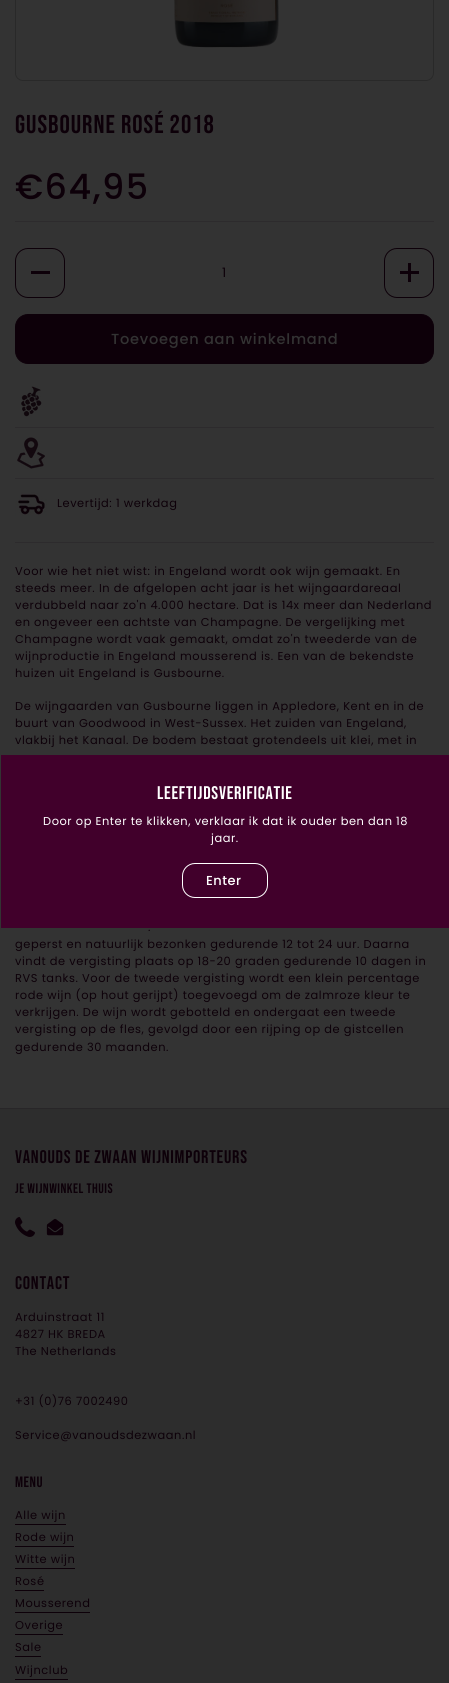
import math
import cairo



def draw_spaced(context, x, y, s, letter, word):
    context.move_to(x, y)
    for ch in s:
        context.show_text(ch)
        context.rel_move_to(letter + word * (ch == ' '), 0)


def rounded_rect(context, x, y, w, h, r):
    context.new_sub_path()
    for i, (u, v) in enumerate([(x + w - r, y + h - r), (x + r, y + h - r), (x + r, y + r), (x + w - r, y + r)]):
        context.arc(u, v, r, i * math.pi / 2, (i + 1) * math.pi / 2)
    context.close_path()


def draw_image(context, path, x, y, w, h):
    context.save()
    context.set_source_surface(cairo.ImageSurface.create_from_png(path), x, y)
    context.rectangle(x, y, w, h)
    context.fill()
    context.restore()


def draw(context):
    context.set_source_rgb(51 / 255, 51 / 255, 51 / 255)
    context.paint()
    rounded_rect(context, 15.5, -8.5, 418, 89, 7.5)
    context.set_source_rgb(41 / 255, 41 / 255, 41 / 255)
    context.set_line_width(1)
    context.stroke()
    draw_image(context, "images/1.png", 174, 0, 105, 48)
    context.set_source_rgb(45 / 255, 43 / 255, 45 / 255)
    context.rectangle(15, 221, 419, 1)
    context.fill()
    rounded_rect(context, 15.5, 248.5, 49, 49, 12.5)
    context.set_source_rgb(13 / 255, 0, 9 / 255)
    context.stroke()
    context.rectangle(31, 271, 19, 3)
    context.fill()
    rounded_rect(context, 384.5, 248.5, 49, 49, 12.5)
    context.stroke()
    context.rectangle(408, 263, 3, 19)
    context.fill()
    context.rectangle(400, 271, 19, 3)
    context.fill()
    rounded_rect(context, 15.5, 314.5, 418, 49, 12.5)
    context.fill_preserve()
    context.stroke()
    context.set_source_rgb(45 / 255, 43 / 255, 45 / 255)
    context.rectangle(15, 427, 419, 1)
    context.fill()
    draw_image(context, "images/2.png", 21, 386, 21, 31)
    context.rectangle(15, 478, 419, 1)
    context.fill()
    draw_image(context, "images/3.png", 17, 437, 28, 32)
    draw_image(context, "images/4.png", 15, 492, 32, 24)
    context.rectangle(15, 542, 419, 1)
    context.fill()
    context.set_source_rgb(65 / 255, 0, 43 / 255)
    context.rectangle(1, 755, 448, 173)
    context.fill()
    rounded_rect(context, 182.5, 863.5, 85, 34, 12.5)
    context.set_source_rgb(1, 1, 1)
    context.stroke()
    context.set_source_rgb(45 / 255, 45 / 255, 45 / 255)
    context.rectangle(0, 1109, 449, 574)
    context.fill()
    context.set_source_rgb(40 / 255, 38 / 255, 40 / 255)
    context.rectangle(0, 1108, 449, 1)
    context.fill()
    draw_image(context, "images/5.png", 15, 1217, 20, 20)
    draw_image(context, "images/6.png", 46, 1218, 18, 18)
    context.set_source_rgb(13 / 255, 0, 9 / 255)
    context.rectangle(15, 1524, 51, 1)
    context.fill()
    context.rectangle(15, 1546, 59, 1)
    context.fill()
    context.rectangle(15, 1568, 60, 1)
    context.fill()
    context.rectangle(15, 1590, 29, 1)
    context.fill()
    context.rectangle(15, 1612, 75, 1)
    context.fill()
    context.rectangle(15, 1634, 48, 1)
    context.fill()
    context.rectangle(15, 1656, 26, 1)
    context.fill()
    context.rectangle(15, 1679, 53, 1)
    context.fill()
    context.select_font_face("Bebas Neue")
    context.set_font_size(25.75)
    draw_spaced(context, 15, 133, "Gusbourne Rosé 2018", 1, 0)
    context.select_font_face("Poppins Medium")
    context.set_font_size(35)
    draw_spaced(context, 15, 199, "€64,95", 1.5, 0)
    context.select_font_face("Poppins")
    context.set_font_size(13)
    draw_spaced(context, 222, 277, "1", 0.5, 0)
    context.select_font_face("Poppins Medium")
    context.set_font_size(14.6)
    context.set_source_rgb(51 / 255, 51 / 255, 51 / 255)
    draw_spaced(context, 111, 344, "Toevoegen aan winkelmand", 0.75, 0)
    context.select_font_face("Poppins")
    context.set_font_size(11.4)
    context.set_source_rgb(13 / 255, 0, 9 / 255)
    draw_spaced(context, 57, 507, "Levertijd: 1 werkdag", 0.57, 0)
    draw_spaced(context, 15, 575, "Voor wie het niet wist: in Engeland wordt ook wijn gemaakt. En", 0.57, 0)
    draw_spaced(context, 15, 592, "steeds meer. In de afgelopen acht jaar is het wijngaardareaal", 0.57, 0)
    draw_spaced(context, 15, 609, "verdubbeld naar zo'n 4.000 hectare. Dat is 14x meer dan Nederland", 0.57, 0)
    draw_spaced(context, 15, 626, "en ongeveer een achtste van Champagne. De vergelijking met", 0.57, 0)
    draw_spaced(context, 15, 643, "Champagne wordt vaak gemaakt, omdat zo'n tweederde van de", 0.57, 0)
    draw_spaced(context, 15, 660, "wijnproductie in Engeland mousserend is. Een van de bekendste", 0.57, 0)
    draw_spaced(context, 15, 677, "huizen uit Engeland is Gusbourne.", 0.57, 0)
    draw_spaced(context, 15, 710, "De wijngaarden van Gusbourne liggen in Appledore, Kent en in de", 0.57, 0)
    draw_spaced(context, 15, 727, "buurt van Goodwood in West-Sussex. Het zuiden van Engeland,", 0.57, 0)
    draw_spaced(context, 15, 744, "vlakbij het Kanaal. De bodem bestaat grotendeels uit klei, met in", 0.57, 0)
    draw_spaced(context, 148, 931, ".", 0.57, 0)
    draw_spaced(context, 15, 948, "geperst en natuurlijk bezonken gedurende 12 tot 24 uur. Daarna", 0.57, 0)
    draw_spaced(context, 15, 965, "vindt de vergisting plaats op 18-20 graden gedurende 10 dagen in", 0.57, 0)
    draw_spaced(context, 15, 982, "RVS tanks. Voor de tweede vergisting wordt een klein percentage", 0.57, 0)
    draw_spaced(context, 15, 999, "rode wijn (op hout gerijpt) toegevoegd om de zalmroze kleur te", 0.57, 0)
    draw_spaced(context, 15, 1016, "verkrijgen. De wijn wordt gebotteld en ondergaat een tweede", 0.57, 0)
    draw_spaced(context, 15, 1033, "vergisting op de fles, gevolgd door een rijping op de gistcellen", 0.57, 0)
    draw_spaced(context, 15, 1051, "gedurende 30 maanden.", 0.57, 0)
    context.select_font_face("Bebas Neue")
    context.set_font_size(18.3)
    context.set_source_rgb(1, 1, 1)
    draw_spaced(context, 157, 799, "Leeftijdsverificatie", 0.75, 0)
    context.select_font_face("Poppins")
    context.set_font_size(11.4)
    draw_spaced(context, 43, 825, "Door op Enter te klikken, verklaar ik dat ik ouder ben dan 18", 0.57, 0)
    draw_spaced(context, 211, 842, "jaar.", 0.57, 0)
    context.select_font_face("Poppins Medium")
    context.set_font_size(13)
    draw_spaced(context, 206, 885, "Enter", 0.5, 0)
    context.select_font_face("Bebas Neue")
    context.set_font_size(18.3)
    context.set_source_rgb(13 / 255, 0, 9 / 255)
    draw_spaced(context, 15, 1163, "Vanouds de Zwaan Wijnimporteurs", 0.75, 0)
    context.set_font_size(13.75)
    draw_spaced(context, 15, 1193, "Je wijnwinkel Thuis", 0.5, 0)
    context.set_font_size(18.3)
    draw_spaced(context, 15, 1289, "Contact", 0.75, 0)
    context.select_font_face("Poppins")
    context.set_font_size(11.4)
    draw_spaced(context, 15, 1321, "Arduinstraat 11", 0.57, 0)
    draw_spaced(context, 15, 1338, "4827 HK BREDA", 0.57, 0)
    draw_spaced(context, 15, 1355, "The Netherlands", 0.57, 0)
    draw_spaced(context, 15, 1405, "+31 (0)76 7002490", 0.57, 0)
    draw_spaced(context, 15, 1439, "Service@vanoudsdezwaan.nl", 0.57, 0)
    context.select_font_face("Bebas Neue")
    context.set_font_size(15)
    draw_spaced(context, 15, 1487, "Menu", 0.5, 0)
    context.select_font_face("Poppins")
    context.set_font_size(11.4)
    draw_spaced(context, 15, 1519, "Alle wijn", 0.57, 0)
    draw_spaced(context, 15, 1541, "Rode wijn", 0.57, 0)
    draw_spaced(context, 15, 1563, "Witte wijn", 0.57, 0)
    draw_spaced(context, 15, 1585, "Rosé", 0.57, 0)
    draw_spaced(context, 15, 1607, "Mousserend", 0.57, 0)
    draw_spaced(context, 15, 1629, "Overige", 0.57, 0)
    draw_spaced(context, 15, 1651, "Sale", 0.57, 0)
    draw_spaced(context, 15, 1674, "Wijnclub", 0.57, 0)


surface = cairo.ImageSurface(cairo.Format.RGB24, 449, 1683)
context = cairo.Context(surface)
options = cairo.FontOptions()
options.set_hint_metrics(cairo.HintMetrics.OFF)
options.set_hint_style(cairo.HintStyle.NONE)
context.set_font_options(options)
context.set_miter_limit(4)
draw(context)
surface.write_to_png("out.png")
